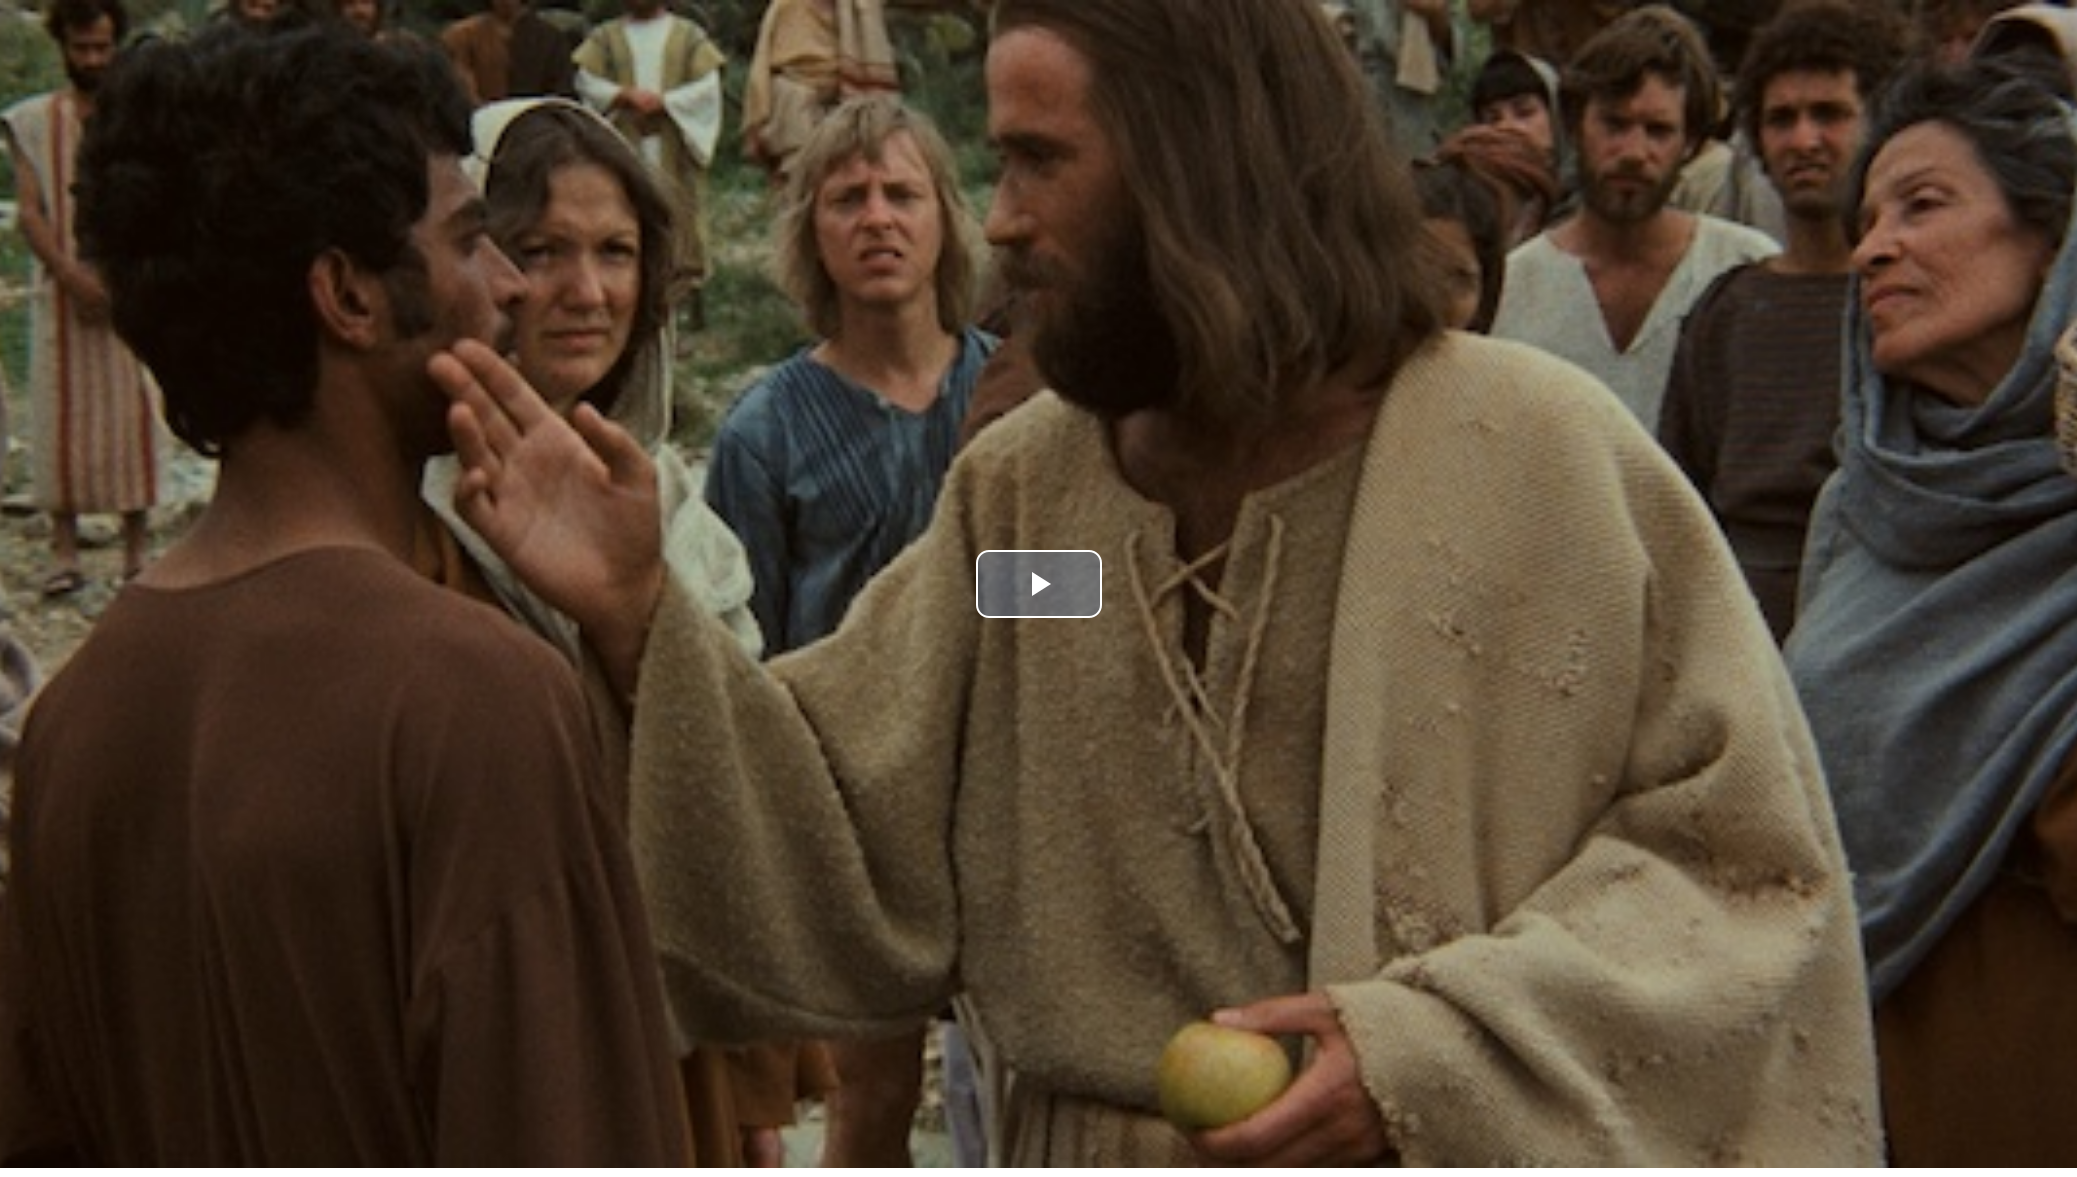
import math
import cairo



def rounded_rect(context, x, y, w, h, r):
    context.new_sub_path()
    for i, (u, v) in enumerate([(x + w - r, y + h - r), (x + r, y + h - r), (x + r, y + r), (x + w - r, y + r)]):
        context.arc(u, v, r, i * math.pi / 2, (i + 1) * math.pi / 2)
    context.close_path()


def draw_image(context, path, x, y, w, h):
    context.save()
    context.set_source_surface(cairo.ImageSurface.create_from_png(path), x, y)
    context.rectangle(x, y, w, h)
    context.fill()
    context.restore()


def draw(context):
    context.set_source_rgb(1, 1, 1)
    context.paint()
    draw_image(context, "images/1.png", 0, 0, 2077, 1168)
    context.set_source_rgba(115 / 255, 133 / 255, 159 / 255, 0.5)
    rounded_rect(context, 977, 551, 124, 66, 12)
    context.fill_preserve()
    context.set_source_rgb(1, 1, 1)
    context.stroke()
    context.new_path()
    context.move_to(1032, 572)
    context.line_to(1032, 596)
    context.line_to(1051, 584)
    context.close_path()
    context.fill()


surface = cairo.ImageSurface(cairo.Format.RGB24, 2077, 1177)
context = cairo.Context(surface)
options = cairo.FontOptions()
options.set_hint_metrics(cairo.HintMetrics.OFF)
options.set_hint_style(cairo.HintStyle.NONE)
context.set_font_options(options)
context.set_miter_limit(4)
draw(context)
surface.write_to_png("out.png")
